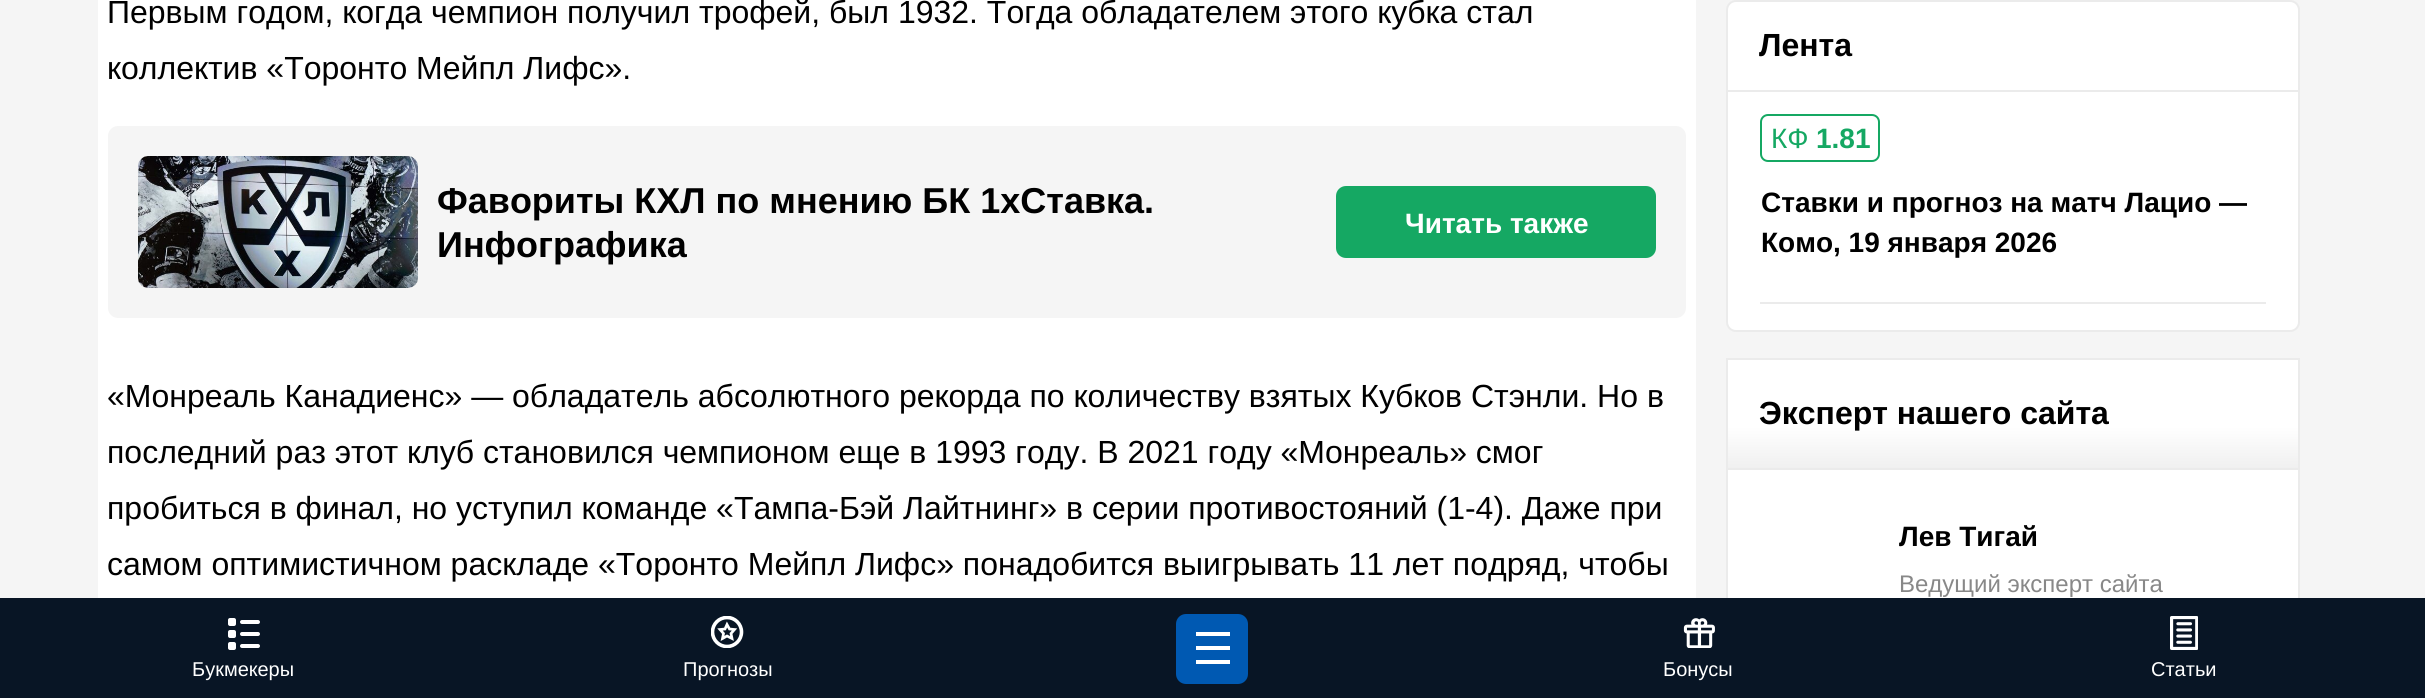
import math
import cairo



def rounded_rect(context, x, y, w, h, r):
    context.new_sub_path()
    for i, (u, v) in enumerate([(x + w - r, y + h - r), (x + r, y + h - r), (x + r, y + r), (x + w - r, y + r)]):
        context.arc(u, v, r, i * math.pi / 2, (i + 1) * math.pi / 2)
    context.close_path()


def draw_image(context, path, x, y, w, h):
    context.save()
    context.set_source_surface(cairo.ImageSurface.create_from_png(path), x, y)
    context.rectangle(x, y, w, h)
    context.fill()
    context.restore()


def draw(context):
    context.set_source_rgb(245 / 255, 245 / 255, 245 / 255)
    context.paint()
    context.set_source_rgb(1, 1, 1)
    context.rectangle(98, 0, 1598, 598)
    context.fill()
    context.set_source_rgb(245 / 255, 245 / 255, 245 / 255)
    rounded_rect(context, 108, 126, 1578, 192, 10)
    context.fill()
    draw_image(context, "images/1.png", 138, 156, 280, 132)
    context.set_source_rgb(21 / 255, 168 / 255, 99 / 255)
    rounded_rect(context, 1337, 187, 318, 70, 9)
    context.fill_preserve()
    context.stroke()
    context.set_source_rgb(1, 1, 1)
    rounded_rect(context, 1727, 1, 572, 330, 9)
    context.fill_preserve()
    context.set_source_rgb(235 / 255, 235 / 255, 235 / 255)
    context.stroke()
    context.rectangle(1728, 90, 570, 2)
    context.fill()
    context.rectangle(1760, 302, 506, 2)
    context.fill()
    rounded_rect(context, 1761, 115, 118, 46, 7)
    context.set_source_rgb(21 / 255, 168 / 255, 99 / 255)
    context.stroke()
    context.rectangle(1727, 359, 572, 292)
    context.set_source_rgb(235 / 255, 235 / 255, 235 / 255)
    context.stroke()
    gradient = cairo.LinearGradient(2013, 360, 2013, 468)
    gradient.add_color_stop_rgba(0.62, 1, 1, 1, 1)
    gradient.add_color_stop_rgba(1, 240 / 255, 240 / 255, 240 / 255, 1)
    context.set_source(gradient)
    context.rectangle(1728, 360, 570, 108)
    context.fill()
    context.set_source_rgb(235 / 255, 235 / 255, 235 / 255)
    context.rectangle(1728, 468, 570, 2)
    context.fill()
    context.set_source_rgb(1, 1, 1)
    context.rectangle(1728, 470, 570, 128)
    context.fill()
    context.set_source_rgb(8 / 255, 21 / 255, 37 / 255)
    context.rectangle(0, 598, 2425, 100)
    context.fill()
    context.set_source_rgb(1, 1, 1)
    rounded_rect(context, 240, 620, 20, 4, 2)
    context.fill()
    rounded_rect(context, 228, 618, 8, 8, 2)
    context.fill()
    rounded_rect(context, 240, 632, 20, 4, 2)
    context.fill()
    rounded_rect(context, 240, 644, 20, 4, 2)
    context.fill()
    rounded_rect(context, 228, 630, 8, 8, 2)
    context.fill()
    rounded_rect(context, 228, 642, 8, 8, 2)
    context.fill()
    context.new_path()
    context.move_to(727, 624.5)
    context.line_to(729.5, 629)
    context.line_to(734.5, 629.5)
    context.line_to(731, 633.5)
    context.line_to(732, 638.5)
    context.line_to(727, 636)
    context.line_to(722.5, 638.5)
    context.line_to(723.5, 633.5)
    context.line_to(720, 629.5)
    context.line_to(725, 629)
    context.close_path()
    context.set_line_width(2.7)
    context.stroke()
    context.save()
    context.new_path()
    context.move_to(711, 616)
    context.line_to(743.5, 616)
    context.line_to(743.5, 648)
    context.line_to(711, 648)
    context.close_path()
    context.clip()
    context.arc(727, 632, 14.5, 0, 2 * math.pi)
    context.set_line_width(3.6)
    context.stroke()
    context.restore()
    context.set_source_rgb(0, 89 / 255, 178 / 255)
    rounded_rect(context, 1176, 614, 72, 70, 10)
    context.fill()
    context.set_source_rgb(1, 1, 1)
    context.rectangle(1196, 632, 34, 4)
    context.fill()
    context.rectangle(1196, 660, 34, 4)
    context.fill()
    context.rectangle(1196, 646, 34, 4)
    context.fill()
    draw_image(context, "images/2.png", 1683, 618, 32, 30)
    draw_image(context, "images/3.png", 2170, 616, 28, 34)
    context.select_font_face("Liberation Sans")
    context.set_font_size(32)
    context.set_source_rgb(0, 0, 0)
    context.move_to(107, 23)
    context.show_text("Первым годом, когда чемпион получил трофей, был 1932. Тогда обладателем этого кубка стал")
    context.move_to(107, 79)
    context.show_text("коллектив «Торонто Мейпл Лифс».")
    context.select_font_face("Liberation Sans", cairo.FontSlant.NORMAL, cairo.FontWeight.BOLD)
    context.set_font_size(36)
    context.move_to(437, 213)
    context.show_text("Фавориты КХЛ по мнению БК 1хСтавка.")
    context.move_to(437, 257)
    context.show_text("Инфографика")
    context.set_font_size(28)
    context.set_source_rgb(1, 1, 1)
    context.move_to(1405, 233)
    context.show_text("Читать также")
    context.select_font_face("Liberation Sans")
    context.set_font_size(32)
    context.set_source_rgb(0, 0, 0)
    context.move_to(107, 407)
    context.show_text("«Монреаль Канадиенс» — обладатель абсолютного рекорда по количеству взятых Кубков Стэнли. Но в")
    context.move_to(107, 463)
    context.show_text("последний раз этот клуб становился чемпионом еще в 1993 году. В 2021 году «Монреаль» смог")
    context.move_to(107, 519)
    context.show_text("пробиться в финал, но уступил команде «Тампа-Бэй Лайтнинг» в серии противостояний (1-4). Даже при")
    context.move_to(107, 575)
    context.show_text("самом оптимистичном раскладе «Торонто Мейпл Лифс» понадобится выигрывать 11 лет подряд, чтобы")
    context.select_font_face("Liberation Sans", cairo.FontSlant.NORMAL, cairo.FontWeight.BOLD)
    context.move_to(1759, 56)
    context.show_text("Лента")
    context.select_font_face("Liberation Sans")
    context.set_font_size(28)
    context.set_source_rgb(21 / 255, 168 / 255, 99 / 255)
    context.move_to(1771, 148)
    context.show_text("КФ")
    context.select_font_face("Liberation Sans", cairo.FontSlant.NORMAL, cairo.FontWeight.BOLD)
    context.move_to(1816, 148)
    context.show_text("1.81")
    context.set_source_rgb(0, 0, 0)
    context.move_to(1761, 212)
    context.show_text("Ставки и прогноз на матч Лацио —")
    context.move_to(1761, 252)
    context.show_text("Комо, 19 января 2026")
    context.set_font_size(32)
    context.move_to(1759, 424)
    context.show_text("Эксперт нашего сайта")
    context.set_font_size(28)
    context.move_to(1899, 546)
    context.show_text("Лев Тигай")
    context.select_font_face("Liberation Sans")
    context.set_font_size(24)
    context.set_source_rgb(136 / 255, 136 / 255, 136 / 255)
    context.move_to(1899, 592)
    context.show_text("Ведущий эксперт сайта")
    context.set_font_size(20)
    context.set_source_rgb(1, 1, 1)
    context.move_to(192, 676)
    context.show_text("Букмекеры")
    context.move_to(683, 676)
    context.show_text("Прогнозы")
    context.move_to(1663, 676)
    context.show_text("Бонусы")
    context.move_to(2151, 676)
    context.show_text("Статьи")


surface = cairo.ImageSurface(cairo.Format.RGB24, 2425, 698)
context = cairo.Context(surface)
options = cairo.FontOptions()
options.set_hint_metrics(cairo.HintMetrics.OFF)
options.set_hint_style(cairo.HintStyle.NONE)
context.set_font_options(options)
context.set_miter_limit(4)
draw(context)
surface.write_to_png("out.png")
